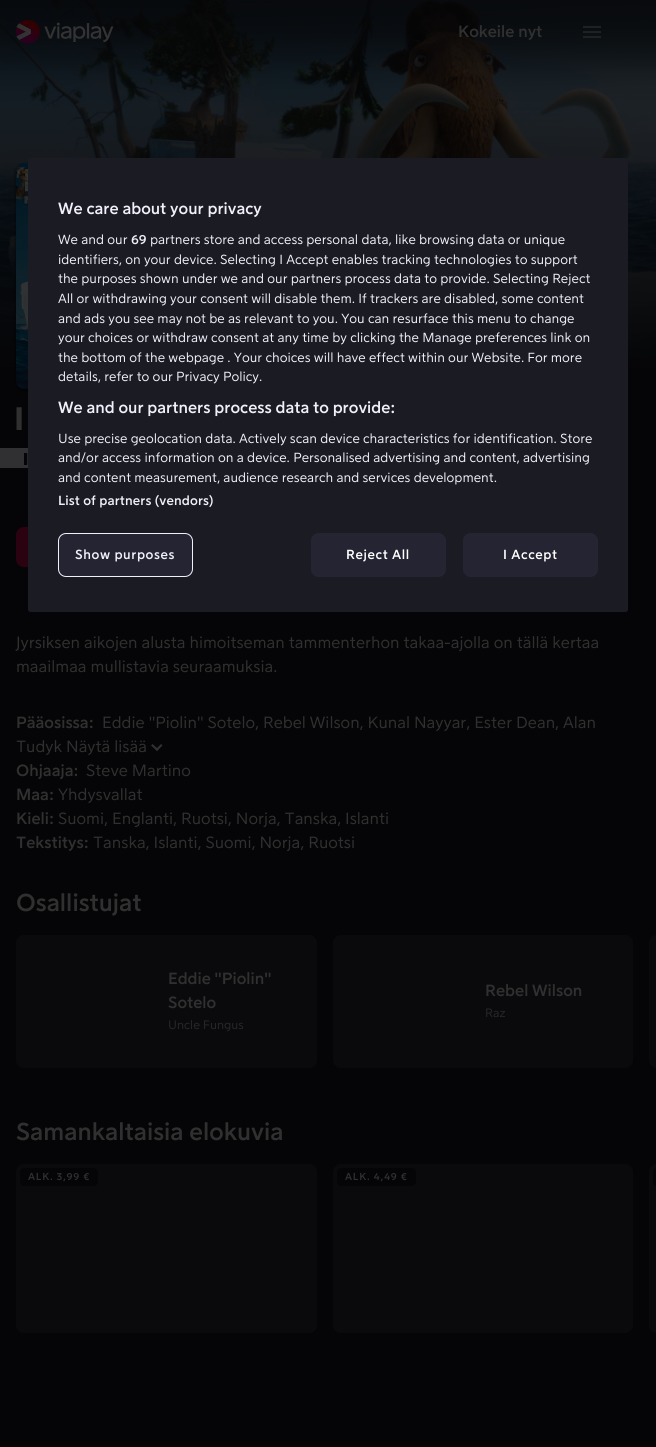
import math
import cairo



def draw_spaced(context, x, y, s, letter, word):
    context.move_to(x, y)
    for ch in s:
        context.show_text(ch)
        context.rel_move_to(letter + word * (ch == ' '), 0)


def rounded_rect(context, x, y, w, h, r):
    context.new_sub_path()
    for i, (u, v) in enumerate([(x + w - r, y + h - r), (x + r, y + h - r), (x + r, y + r), (x + w - r, y + r)]):
        context.arc(u, v, r, i * math.pi / 2, (i + 1) * math.pi / 2)
    context.close_path()


def draw_shadow(context, x, y, w, h, r, blur, alpha):
    context.push_group_with_content(cairo.Content.ALPHA)
    context.set_operator(cairo.Operator.SOURCE)
    for i in range(15, -16, -2):
        e = blur * i / 6
        if min(w, h) + 2 * e > 0:
            context.set_source_rgba(0, 0, 0, alpha * math.erfc((i - 1) / 8.5) / 2)
            rounded_rect(context, x - e, y - e, w + 2 * e, h + 2 * e, max(0, min(r + e + blur * .6, min(w, h) / 2 + e)))
            context.fill()
    context.mask(context.pop_group())


def draw_image(context, path, x, y, w, h):
    context.save()
    context.set_source_surface(cairo.ImageSurface.create_from_png(path), x, y)
    context.rectangle(x, y, w, h)
    context.fill()
    context.restore()


def draw(context):
    context.set_source_rgb(5 / 255, 5 / 255, 7 / 255)
    context.paint()
    draw_image(context, "images/3.png", 0, 0, 656, 368)
    draw_image(context, "images/1.png", 16, 20, 98, 24)
    draw_image(context, "images/2.png", 583, 26, 18, 12)
    context.set_source_rgb(0, 0, 0)
    draw_shadow(context, 16, 165, 151, 226, 8, 2, 0.68)
    draw_image(context, "images/4.png", 16, 163, 12, 226)
    context.set_source_rgb(48 / 255, 48 / 255, 50 / 255)
    context.rectangle(0, 448, 28, 20)
    context.fill()
    draw_image(context, "images/5.png", 24, 453, 4, 12)
    context.set_source_rgb(43 / 255, 2 / 255, 16 / 255)
    rounded_rect(context, 16, 527, 194, 40, 8)
    context.fill()
    context.set_source_rgb(48 / 255, 48 / 255, 50 / 255)
    context.new_path()
    context.move_to(161, 744)
    context.line_to(162.5, 745.5)
    context.line_to(157, 751)
    context.line_to(155.5, 749.5)
    context.close_path()
    context.fill()
    context.new_path()
    context.move_to(152.5, 744)
    context.line_to(158.5, 749.5)
    context.line_to(157, 751)
    context.line_to(151, 745.5)
    context.close_path()
    context.fill()
    context.set_source_rgb(10 / 255, 9 / 255, 12 / 255)
    rounded_rect(context, 16, 935, 301, 133, 8)
    context.fill()
    rounded_rect(context, 333, 935, 300, 133, 8)
    context.fill()
    context.new_path()
    context.move_to(657, 935)
    context.line_to(656, 935)
    context.line_to(656, 1068)
    context.line_to(657, 1068)
    context.curve_to(652.5, 1068, 649, 1064.5, 649, 1060)
    context.line_to(649, 943)
    context.curve_to(649, 938.5, 652.5, 935, 657, 935)
    context.close_path()
    context.fill()
    rounded_rect(context, 16, 1164, 301, 169, 8)
    context.fill()
    context.set_source_rgb(5 / 255, 5 / 255, 7 / 255)
    rounded_rect(context, 20, 1168, 78, 18, 4)
    context.fill()
    context.set_source_rgb(10 / 255, 9 / 255, 12 / 255)
    rounded_rect(context, 333, 1164, 300, 169, 8)
    context.fill()
    context.set_source_rgb(5 / 255, 5 / 255, 7 / 255)
    rounded_rect(context, 337, 1168, 79, 18, 4)
    context.fill()
    context.set_source_rgb(10 / 255, 9 / 255, 12 / 255)
    context.new_path()
    context.move_to(657, 1164)
    context.line_to(656, 1164)
    context.line_to(656, 1333)
    context.line_to(657, 1333)
    context.curve_to(652.5, 1333, 649, 1329.5, 649, 1325)
    context.line_to(649, 1172)
    context.curve_to(649, 1167.5, 652.5, 1164, 657, 1164)
    context.close_path()
    context.fill()
    context.set_source_rgb(5 / 255, 5 / 255, 7 / 255)
    context.new_path()
    context.move_to(657, 1168)
    context.line_to(656, 1168)
    context.line_to(656, 1186)
    context.line_to(657, 1186)
    context.curve_to(655, 1186, 653, 1184, 653, 1182)
    context.line_to(653, 1172)
    context.curve_to(653, 1170, 655, 1168, 657, 1168)
    context.close_path()
    context.fill()
    context.set_source_rgb(27 / 255, 27 / 255, 36 / 255)
    rounded_rect(context, 28, 158, 600, 454, 2.5)
    context.fill()
    context.set_source_rgb(37 / 255, 36 / 255, 51 / 255)
    rounded_rect(context, 58.5, 533.5, 134, 43, 7.5)
    context.fill_preserve()
    context.set_source_rgb(241 / 255, 240 / 255, 250 / 255)
    context.set_line_width(1)
    context.stroke()
    context.set_source_rgb(37 / 255, 36 / 255, 51 / 255)
    rounded_rect(context, 311.5, 533.5, 134, 43, 7.5)
    context.fill_preserve()
    context.stroke()
    rounded_rect(context, 463.5, 533.5, 134, 43, 7.5)
    context.fill_preserve()
    context.stroke()
    context.select_font_face("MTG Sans", cairo.FontSlant.NORMAL, cairo.FontWeight.BOLD)
    context.set_font_size(16)
    context.set_source_rgb(48 / 255, 48 / 255, 48 / 255)
    context.move_to(458, 37)
    context.show_text("Kokeile nyt")
    context.select_font_face("MTG Sans Black")
    context.set_font_size(32)
    context.move_to(14, 430)
    context.show_text("I")
    context.select_font_face("MTG Sans")
    context.set_font_size(16)
    context.move_to(16, 648)
    context.show_text("Jyrsiksen aikojen alusta himoitseman tammenterhon takaa-ajolla on tällä kertaa")
    context.move_to(16, 672)
    context.show_text("maailmaa mullistavia seuraamuksia.")
    context.move_to(102, 728)
    context.show_text("Eddie \"Piolin\" Sotelo, Rebel Wilson, Kunal Nayyar, Ester Dean, Alan")
    context.move_to(16, 752)
    context.show_text("Tudyk Näytä lisää")
    context.select_font_face("MTG Sans", cairo.FontSlant.NORMAL, cairo.FontWeight.BOLD)
    context.move_to(16, 728)
    context.show_text("Pääosissa:")
    context.move_to(16, 776)
    context.show_text("Ohjaaja:")
    context.select_font_face("MTG Sans")
    context.move_to(86, 776)
    context.show_text("Steve Martino")
    context.select_font_face("MTG Sans", cairo.FontSlant.NORMAL, cairo.FontWeight.BOLD)
    context.move_to(16, 800)
    context.show_text("Maa:")
    context.select_font_face("MTG Sans")
    context.move_to(58, 800)
    context.show_text("Yhdysvallat")
    context.select_font_face("MTG Sans", cairo.FontSlant.NORMAL, cairo.FontWeight.BOLD)
    context.move_to(16, 824)
    context.show_text("Kieli:")
    context.select_font_face("MTG Sans")
    context.move_to(58, 824)
    context.show_text("Suomi, Englanti, Ruotsi, Norja, Tanska, Islanti")
    context.select_font_face("MTG Sans", cairo.FontSlant.NORMAL, cairo.FontWeight.BOLD)
    context.move_to(16, 848)
    context.show_text("Tekstitys:")
    context.select_font_face("MTG Sans")
    context.move_to(93, 848)
    context.show_text("Tanska, Islanti, Suomi, Norja, Ruotsi")
    context.select_font_face("MTG Sans", cairo.FontSlant.NORMAL, cairo.FontWeight.BOLD)
    context.set_font_size(24)
    context.move_to(16, 911)
    context.show_text("Osallistujat")
    context.set_font_size(16)
    context.move_to(168, 984)
    context.show_text("Eddie \"Piolin\"")
    context.move_to(168, 1008)
    context.show_text("Sotelo")
    context.select_font_face("MTG Sans")
    context.set_font_size(12)
    context.set_source_rgb(39 / 255, 39 / 255, 40 / 255)
    context.move_to(168, 1029)
    context.show_text("Uncle Fungus")
    context.select_font_face("MTG Sans", cairo.FontSlant.NORMAL, cairo.FontWeight.BOLD)
    context.set_font_size(16)
    context.set_source_rgb(48 / 255, 48 / 255, 48 / 255)
    context.move_to(485, 996)
    context.show_text("Rebel Wilson")
    context.select_font_face("MTG Sans")
    context.set_font_size(12)
    context.set_source_rgb(39 / 255, 39 / 255, 40 / 255)
    context.move_to(485, 1017)
    context.show_text("Raz")
    context.select_font_face("MTG Sans", cairo.FontSlant.NORMAL, cairo.FontWeight.BOLD)
    context.set_font_size(24)
    context.set_source_rgb(48 / 255, 48 / 255, 48 / 255)
    context.move_to(16, 1140)
    context.show_text("Samankaltaisia elokuvia")
    context.set_font_size(10)
    draw_spaced(context, 28, 1180, "ALK. 3,99 €", 0.75, 0)
    draw_spaced(context, 345, 1180, "ALK. 4,49 €", 0.75, 0)
    context.set_font_size(16)
    context.set_source_rgb(241 / 255, 240 / 255, 250 / 255)
    context.move_to(58, 214)
    context.show_text("We care about your privacy")
    context.select_font_face("MTG Sans")
    context.set_font_size(13)
    context.move_to(58, 244)
    context.show_text("We and our")
    context.select_font_face("MTG Sans", cairo.FontSlant.NORMAL, cairo.FontWeight.BOLD)
    context.move_to(131, 244)
    context.show_text("69")
    context.select_font_face("MTG Sans")
    context.move_to(150, 244)
    context.show_text("partners store and access personal data, like browsing data or unique")
    context.move_to(58, 264)
    context.show_text("identifiers, on your device. Selecting I Accept enables tracking technologies to support")
    context.move_to(58, 283)
    context.show_text("the purposes shown under we and our partners process data to provide. Selecting Reject")
    context.move_to(58, 303)
    context.show_text("All or withdrawing your consent will disable them. If trackers are disabled, some content")
    context.move_to(58, 323)
    context.show_text("and ads you see may not be as relevant to you. You can resurface this menu to change")
    context.move_to(58, 342)
    context.show_text("your choices or withdraw consent at any time by clicking the Manage preferences link on")
    context.move_to(58, 362)
    context.show_text("the bottom of the webpage . Your choices will have effect within our Website. For more")
    context.move_to(58, 381)
    context.show_text("details, refer to our Privacy Policy.")
    context.select_font_face("MTG Sans", cairo.FontSlant.NORMAL, cairo.FontWeight.BOLD)
    context.set_font_size(16)
    context.move_to(58, 413)
    context.show_text("We and our partners process data to provide:")
    context.select_font_face("MTG Sans")
    context.set_font_size(13)
    context.move_to(58, 443)
    context.show_text("Use precise geolocation data. Actively scan device characteristics for identification. Store")
    context.move_to(58, 462)
    context.show_text("and/or access information on a device. Personalised advertising and content, advertising")
    context.move_to(58, 482)
    context.show_text("and content measurement, audience research and services development.")
    context.select_font_face("MTG Sans", cairo.FontSlant.NORMAL, cairo.FontWeight.BOLD)
    draw_spaced(context, 58, 505, "List of partners (vendors)", 0.1, 0)
    draw_spaced(context, 75, 559, "Show purposes", 0.6, 0)
    context.set_source_rgb(1, 1, 1)
    draw_spaced(context, 346, 559, "Reject All", 0.6, 0)
    draw_spaced(context, 503, 559, "I Accept", 0.6, 0)


surface = cairo.ImageSurface(cairo.Format.RGB24, 656, 1447)
context = cairo.Context(surface)
options = cairo.FontOptions()
options.set_hint_metrics(cairo.HintMetrics.OFF)
options.set_hint_style(cairo.HintStyle.NONE)
context.set_font_options(options)
context.set_miter_limit(4)
draw(context)
surface.write_to_png("out.png")
